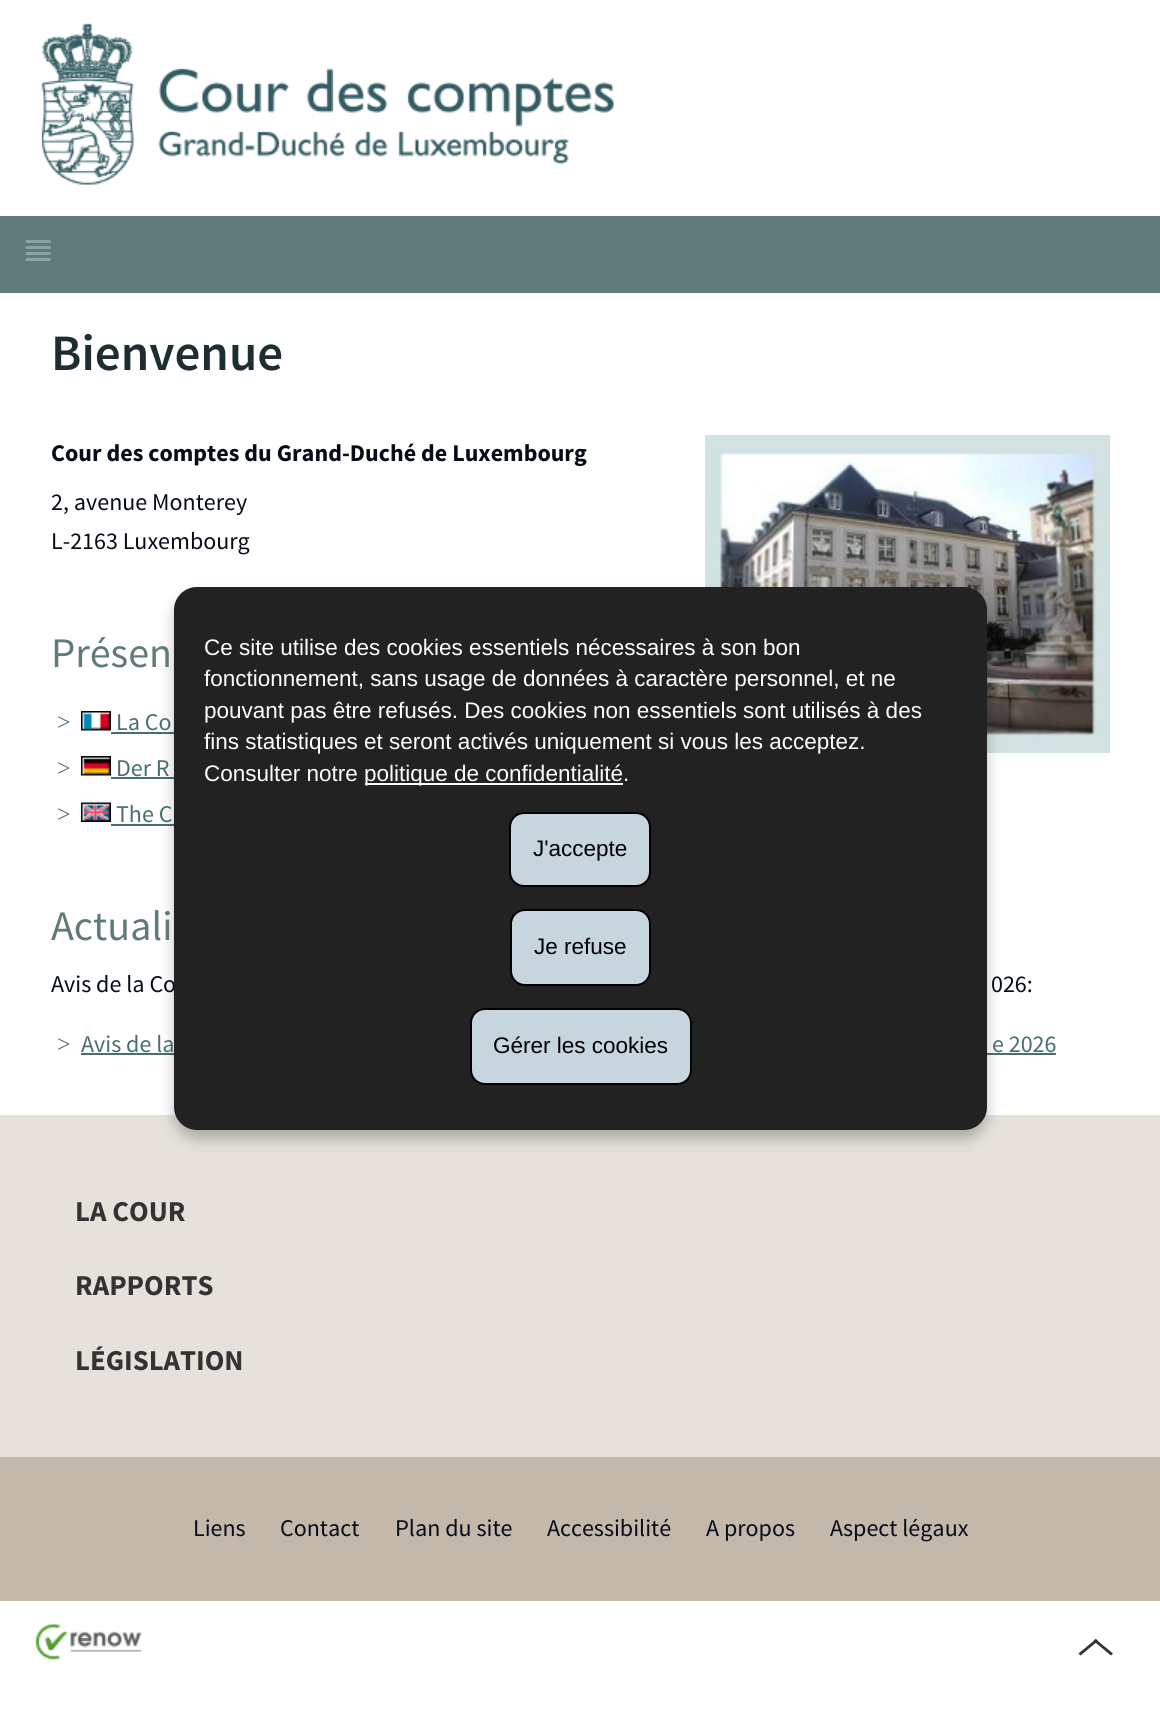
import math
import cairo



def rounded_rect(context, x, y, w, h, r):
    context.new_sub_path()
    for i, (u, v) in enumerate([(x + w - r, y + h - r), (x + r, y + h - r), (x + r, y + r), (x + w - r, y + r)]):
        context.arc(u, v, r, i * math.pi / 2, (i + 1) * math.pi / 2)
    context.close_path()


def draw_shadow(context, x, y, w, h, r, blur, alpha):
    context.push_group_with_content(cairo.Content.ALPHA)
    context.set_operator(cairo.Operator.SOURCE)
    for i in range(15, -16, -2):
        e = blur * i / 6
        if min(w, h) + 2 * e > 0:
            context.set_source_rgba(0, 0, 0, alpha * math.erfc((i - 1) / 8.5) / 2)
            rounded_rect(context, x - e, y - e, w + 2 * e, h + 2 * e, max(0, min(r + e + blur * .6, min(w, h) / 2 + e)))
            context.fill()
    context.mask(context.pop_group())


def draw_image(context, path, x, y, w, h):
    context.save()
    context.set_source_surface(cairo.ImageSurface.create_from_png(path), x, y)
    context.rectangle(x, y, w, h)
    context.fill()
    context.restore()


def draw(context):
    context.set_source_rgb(1, 1, 1)
    context.paint()
    context.set_source_rgb(96 / 255, 121 / 255, 121 / 255)
    context.rectangle(0, 216, 1160, 77)
    context.fill()
    draw_image(context, "images/1.png", 41, 23, 573, 162)
    draw_image(context, "images/2.png", 25, 240, 26, 21)
    draw_image(context, "images/3.png", 705, 435, 405, 318)
    draw_image(context, "images/4.png", 81, 711, 30, 20)
    context.set_source_rgb(71 / 255, 111 / 255, 113 / 255)
    context.rectangle(111, 732, 63, 2)
    context.fill()
    draw_image(context, "images/5.png", 81, 756, 30, 20)
    context.rectangle(111, 777, 63, 2)
    context.fill()
    draw_image(context, "images/6.png", 81, 802, 30, 20)
    context.rectangle(111, 824, 63, 2)
    context.fill()
    context.rectangle(81, 1053, 975, 2)
    context.fill()
    context.set_source_rgb(230 / 255, 225 / 255, 219 / 255)
    context.rectangle(0, 1115, 1160, 342)
    context.fill()
    context.set_source_rgb(196 / 255, 184 / 255, 171 / 255)
    context.rectangle(0, 1457, 1160, 144)
    context.fill()
    draw_image(context, "images/7.png", 35, 1624, 107, 36)
    context.set_source_rgb(51 / 255, 51 / 255, 51 / 255)
    context.new_path()
    context.move_to(1078.5, 1653.5)
    context.line_to(1096, 1639)
    context.line_to(1098, 1641)
    context.line_to(1080.5, 1655.5)
    context.close_path()
    context.fill()
    context.new_path()
    context.move_to(1095.5, 1639)
    context.line_to(1113, 1653.5)
    context.line_to(1111, 1655.5)
    context.line_to(1093.5, 1641)
    context.close_path()
    context.fill()
    context.set_source_rgb(0, 0, 0)
    draw_shadow(context, 174, 596, 813, 543, 23, 7, 0.25)
    context.select_font_face("Source Sans Pro SemiBold")
    context.set_font_size(51)
    context.set_source_rgb(29 / 255, 46 / 255, 48 / 255)
    context.move_to(51, 370)
    context.show_text("Bienvenue")
    context.select_font_face("Source Sans Pro", cairo.FontSlant.NORMAL, cairo.FontWeight.BOLD)
    context.set_font_size(24)
    context.set_source_rgb(6 / 255, 12 / 255, 23 / 255)
    context.move_to(51, 461)
    context.show_text("Cour des comptes du Grand-Duché de Luxembourg")
    context.select_font_face("Source Sans Pro")
    context.move_to(51, 510)
    context.show_text("2, avenue Monterey")
    context.move_to(51, 549)
    context.show_text("L-2163 Luxembourg")
    context.set_font_size(42)
    context.set_source_rgb(96 / 255, 121 / 255, 121 / 255)
    context.move_to(51, 667)
    context.show_text("Présen")
    context.select_font_face("Liberation Serif")
    context.set_font_size(24)
    context.set_source_rgb(71 / 255, 111 / 255, 113 / 255)
    context.move_to(57, 730)
    context.show_text(">")
    context.select_font_face("Source Sans Pro")
    context.move_to(116, 730)
    context.show_text("La Co")
    context.select_font_face("Liberation Serif")
    context.move_to(57, 776)
    context.show_text(">")
    context.select_font_face("Source Sans Pro")
    context.move_to(116, 776)
    context.show_text("Der R")
    context.select_font_face("Liberation Serif")
    context.move_to(57, 822)
    context.show_text(">")
    context.select_font_face("Source Sans Pro")
    context.move_to(116, 822)
    context.show_text("The C")
    context.set_font_size(42)
    context.set_source_rgb(96 / 255, 121 / 255, 121 / 255)
    context.move_to(51, 940)
    context.show_text("Actuali")
    context.set_font_size(24)
    context.set_source_rgb(6 / 255, 12 / 255, 23 / 255)
    context.move_to(51, 992)
    context.show_text("Avis de la Co")
    context.move_to(991, 992)
    context.show_text("026:")
    context.select_font_face("Liberation Serif")
    context.set_source_rgb(71 / 255, 111 / 255, 113 / 255)
    context.move_to(57, 1052)
    context.show_text(">")
    context.select_font_face("Source Sans Pro")
    context.move_to(81, 1052)
    context.show_text("Avis de la")
    context.move_to(992, 1052)
    context.show_text("e 2026")
    context.select_font_face("Source Sans Pro", cairo.FontSlant.NORMAL, cairo.FontWeight.BOLD)
    context.set_font_size(28.75)
    context.set_source_rgb(51 / 255, 51 / 255, 51 / 255)
    context.move_to(75, 1221)
    context.show_text("LA COUR")
    context.move_to(75, 1295)
    context.show_text("RAPPORTS")
    context.move_to(75, 1370)
    context.show_text("LÉGISLATION")
    context.select_font_face("Source Sans Pro")
    context.set_font_size(24)
    context.set_source_rgb(6 / 255, 12 / 255, 23 / 255)
    context.move_to(193, 1536)
    context.show_text("Liens")
    context.move_to(280, 1536)
    context.show_text("Contact")
    context.move_to(395, 1536)
    context.show_text("Plan du site")
    context.move_to(547, 1536)
    context.show_text("Accessibilité")
    context.move_to(706, 1536)
    context.show_text("A propos")
    context.move_to(830, 1536)
    context.show_text("Aspect légaux")
    context.set_source_rgb(34 / 255, 34 / 255, 34 / 255)
    rounded_rect(context, 174, 587, 813, 543, 23)
    context.fill()
    context.select_font_face("Liberation Sans")
    context.set_font_size(22.5)
    context.set_source_rgb(1, 1, 1)
    context.move_to(204, 655)
    context.show_text("Ce site utilise des cookies essentiels nécessaires à son bon")
    context.move_to(204, 686)
    context.show_text("fonctionnement, sans usage de données à caractère personnel, et ne")
    context.move_to(204, 718)
    context.show_text("pouvant pas être refusés. Des cookies non essentiels sont utilisés à des")
    context.move_to(204, 749)
    context.show_text("fins statistiques et seront activés uniquement si vous les acceptez.")
    context.move_to(204, 781)
    context.show_text("Consulter notre")
    context.rectangle(365, 783, 258, 2)
    context.fill()
    context.move_to(364, 781)
    context.show_text("politique de confidentialité.")
    context.set_source_rgb(198 / 255, 213 / 255, 222 / 255)
    rounded_rect(context, 510, 813, 140, 73, 14)
    context.fill_preserve()
    context.set_source_rgb(0, 0, 0)
    context.stroke()
    context.move_to(533, 856)
    context.show_text("J'accepte")
    context.set_source_rgb(198 / 255, 213 / 255, 222 / 255)
    rounded_rect(context, 511, 910, 139, 75, 14)
    context.fill_preserve()
    context.set_source_rgb(0, 0, 0)
    context.stroke()
    context.move_to(534, 954)
    context.show_text("Je refuse")
    context.set_source_rgb(198 / 255, 213 / 255, 222 / 255)
    rounded_rect(context, 471, 1009, 220, 75, 14)
    context.fill_preserve()
    context.set_source_rgb(0, 0, 0)
    context.stroke()
    context.move_to(493, 1053)
    context.show_text("Gérer les cookies")


surface = cairo.ImageSurface(cairo.Format.RGB24, 1160, 1714)
context = cairo.Context(surface)
options = cairo.FontOptions()
options.set_hint_metrics(cairo.HintMetrics.OFF)
options.set_hint_style(cairo.HintStyle.NONE)
context.set_font_options(options)
context.set_miter_limit(4)
draw(context)
surface.write_to_png("out.png")
